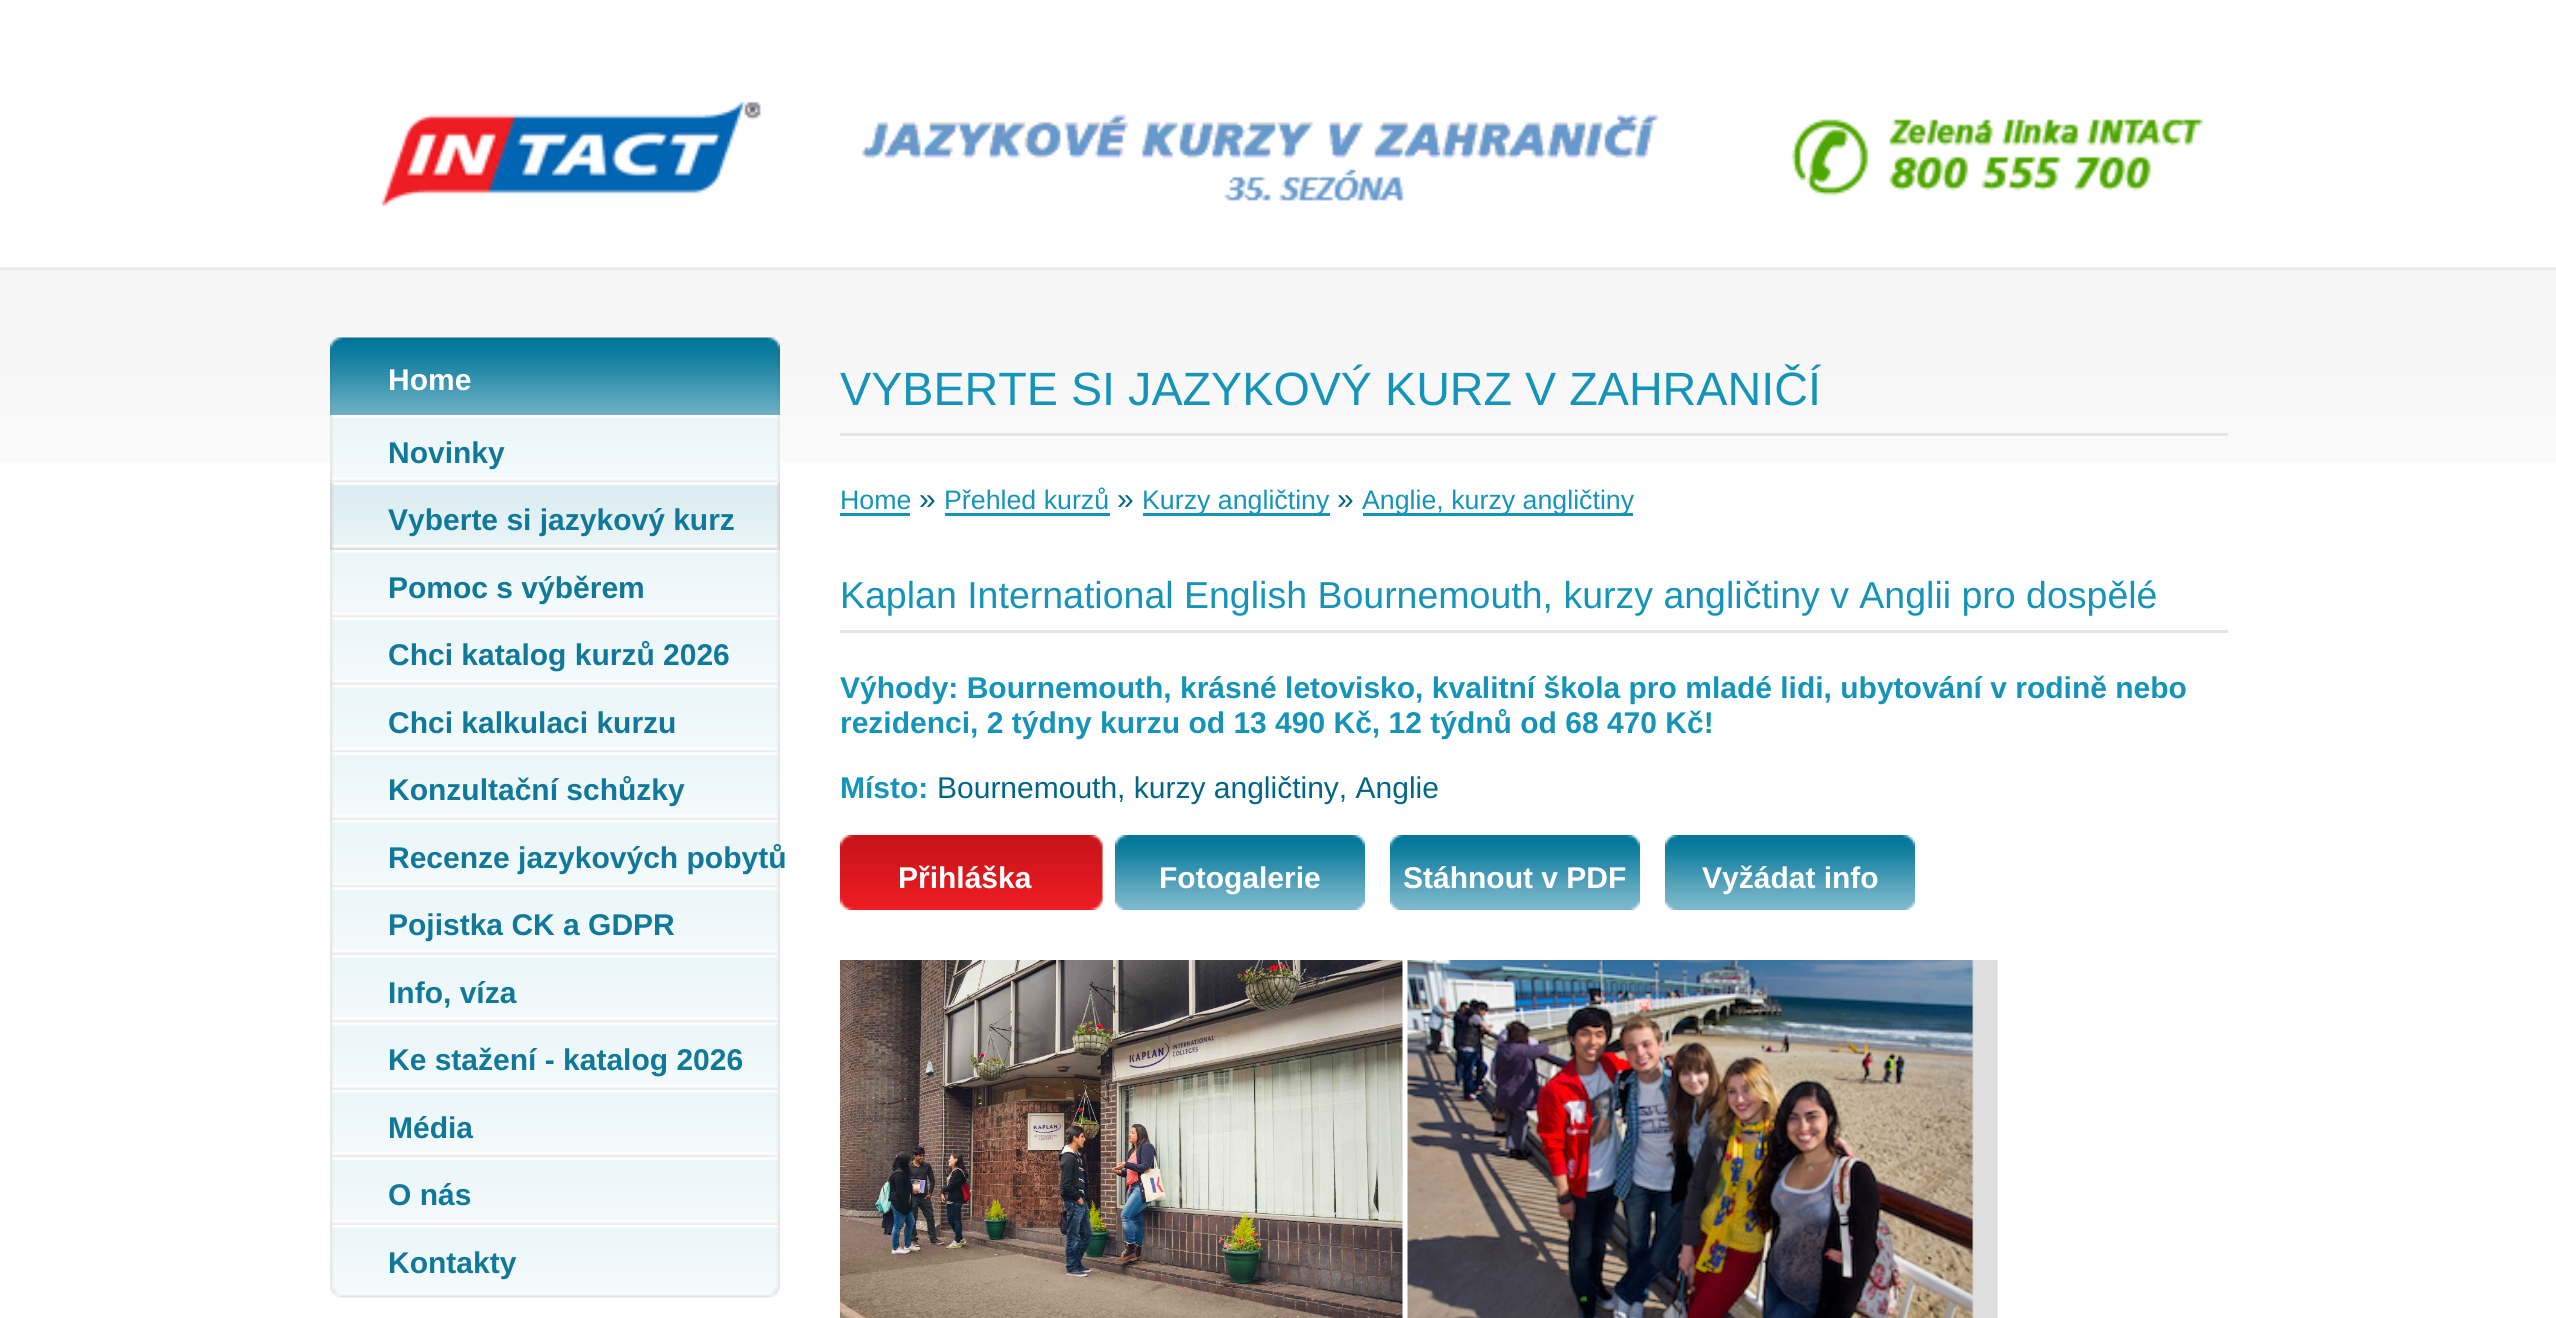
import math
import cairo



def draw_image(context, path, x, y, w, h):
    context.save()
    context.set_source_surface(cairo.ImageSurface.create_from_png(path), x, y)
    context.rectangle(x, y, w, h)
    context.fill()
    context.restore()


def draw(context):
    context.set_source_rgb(1, 1, 1)
    context.paint()
    draw_image(context, "images/1.png", 0, 267, 2556, 195)
    draw_image(context, "images/2.png", 381, 101, 380, 105)
    draw_image(context, "images/3.png", 861, 114, 798, 87)
    draw_image(context, "images/4.png", 1791, 119, 413, 77)
    draw_image(context, "images/5.png", 330, 1287, 450, 11)
    draw_image(context, "images/6.png", 330, 337, 450, 78)
    draw_image(context, "images/7.png", 330, 415, 450, 68)
    draw_image(context, "images/8.png", 330, 482, 450, 68)
    draw_image(context, "images/9.png", 330, 550, 450, 68)
    draw_image(context, "images/10.png", 330, 617, 450, 68)
    draw_image(context, "images/7.png", 330, 685, 450, 68)
    draw_image(context, "images/10.png", 330, 752, 450, 68)
    draw_image(context, "images/7.png", 330, 820, 450, 68)
    draw_image(context, "images/10.png", 330, 887, 450, 68)
    draw_image(context, "images/7.png", 330, 955, 450, 68)
    draw_image(context, "images/10.png", 330, 1022, 450, 68)
    draw_image(context, "images/7.png", 330, 1090, 450, 68)
    draw_image(context, "images/11.png", 330, 1157, 450, 68)
    draw_image(context, "images/12.png", 330, 1225, 450, 63)
    context.set_source_rgb(227 / 255, 231 / 255, 225 / 255)
    context.rectangle(840, 433, 1388, 3)
    context.fill()
    context.set_source_rgb(21 / 255, 148 / 255, 185 / 255)
    context.rectangle(840, 513, 70, 3)
    context.fill()
    context.rectangle(945, 513, 165, 3)
    context.fill()
    context.rectangle(1143, 513, 187, 3)
    context.fill()
    context.rectangle(1363, 513, 270, 3)
    context.fill()
    context.set_source_rgb(227 / 255, 231 / 255, 225 / 255)
    context.rectangle(840, 630, 1388, 3)
    context.fill()
    draw_image(context, "images/13.png", 840, 835, 263, 75)
    draw_image(context, "images/14.png", 1115, 835, 250, 75)
    draw_image(context, "images/15.png", 1390, 835, 250, 75)
    draw_image(context, "images/16.png", 1665, 835, 250, 75)
    draw_image(context, "images/17.png", 840, 960, 563, 358)
    draw_image(context, "images/18.png", 1407, 960, 591, 358)
    context.select_font_face("Liberation Sans", cairo.FontSlant.NORMAL, cairo.FontWeight.BOLD)
    context.set_font_size(30)
    context.set_source_rgb(1, 1, 1)
    context.move_to(388, 390)
    context.show_text("Home")
    context.set_source_rgb(16 / 255, 121 / 255, 153 / 255)
    context.move_to(388, 463)
    context.show_text("Novinky")
    context.move_to(388, 530)
    context.show_text("Vyberte si jazykový kurz")
    context.move_to(388, 598)
    context.show_text("Pomoc s výběrem")
    context.move_to(388, 665)
    context.show_text("Chci katalog kurzů 2026")
    context.move_to(388, 733)
    context.show_text("Chci kalkulaci kurzu")
    context.move_to(388, 800)
    context.show_text("Konzultační schůzky")
    context.move_to(388, 868)
    context.show_text("Recenze jazykových pobytů")
    context.move_to(388, 935)
    context.show_text("Pojistka CK a GDPR")
    context.move_to(388, 1003)
    context.show_text("Info, víza")
    context.move_to(388, 1070)
    context.show_text("Ke stažení - katalog 2026")
    context.move_to(388, 1138)
    context.show_text("Média")
    context.move_to(388, 1205)
    context.show_text("O nás")
    context.move_to(388, 1273)
    context.show_text("Kontakty")
    context.select_font_face("Liberation Sans")
    context.set_font_size(46.7)
    context.set_source_rgb(21 / 255, 148 / 255, 185 / 255)
    context.move_to(840, 405)
    context.show_text("VYBERTE SI JAZYKOVÝ KURZ V ZAHRANIČÍ")
    context.set_font_size(26.75)
    context.move_to(840, 509)
    context.show_text("Home")
    context.set_font_size(30)
    context.set_source_rgb(0, 102 / 255, 133 / 255)
    context.move_to(919, 509)
    context.show_text("»")
    context.set_font_size(26.75)
    context.set_source_rgb(21 / 255, 148 / 255, 185 / 255)
    context.move_to(944, 509)
    context.show_text("Přehled kurzů")
    context.set_font_size(30)
    context.set_source_rgb(0, 102 / 255, 133 / 255)
    context.move_to(1117, 509)
    context.show_text("»")
    context.set_font_size(26.75)
    context.set_source_rgb(21 / 255, 148 / 255, 185 / 255)
    context.move_to(1142, 509)
    context.show_text("Kurzy angličtiny")
    context.set_font_size(30)
    context.set_source_rgb(0, 102 / 255, 133 / 255)
    context.move_to(1337, 509)
    context.show_text("»")
    context.set_font_size(26.75)
    context.set_source_rgb(21 / 255, 148 / 255, 185 / 255)
    context.move_to(1362, 509)
    context.show_text("Anglie, kurzy angličtiny")
    context.set_font_size(37.5)
    context.move_to(840, 608)
    context.show_text("Kaplan International English Bournemouth, kurzy angličtiny v Anglii pro dospělé")
    context.select_font_face("Liberation Sans", cairo.FontSlant.NORMAL, cairo.FontWeight.BOLD)
    context.set_font_size(30)
    context.move_to(840, 698)
    context.show_text("Výhody: Bournemouth, krásné letovisko, kvalitní škola pro mladé lidi, ubytování v rodině nebo")
    context.move_to(840, 733)
    context.show_text("rezidenci, 2 týdny kurzu od 13 490 Kč, 12 týdnů od 68 470 Kč!")
    context.move_to(840, 798)
    context.show_text("Místo:")
    context.select_font_face("Liberation Sans")
    context.set_source_rgb(0, 102 / 255, 133 / 255)
    context.move_to(937, 798)
    context.show_text("Bournemouth, kurzy angličtiny, Anglie")
    context.select_font_face("Liberation Sans", cairo.FontSlant.NORMAL, cairo.FontWeight.BOLD)
    context.set_source_rgb(1, 1, 1)
    context.move_to(898, 888)
    context.show_text("Přihláška")
    context.move_to(1159, 888)
    context.show_text("Fotogalerie")
    context.move_to(1403, 888)
    context.show_text("Stáhnout v PDF")
    context.move_to(1702, 888)
    context.show_text("Vyžádat info")


surface = cairo.ImageSurface(cairo.Format.RGB24, 2556, 1318)
context = cairo.Context(surface)
options = cairo.FontOptions()
options.set_hint_metrics(cairo.HintMetrics.OFF)
options.set_hint_style(cairo.HintStyle.NONE)
context.set_font_options(options)
context.set_miter_limit(4)
draw(context)
surface.write_to_png("out.png")
